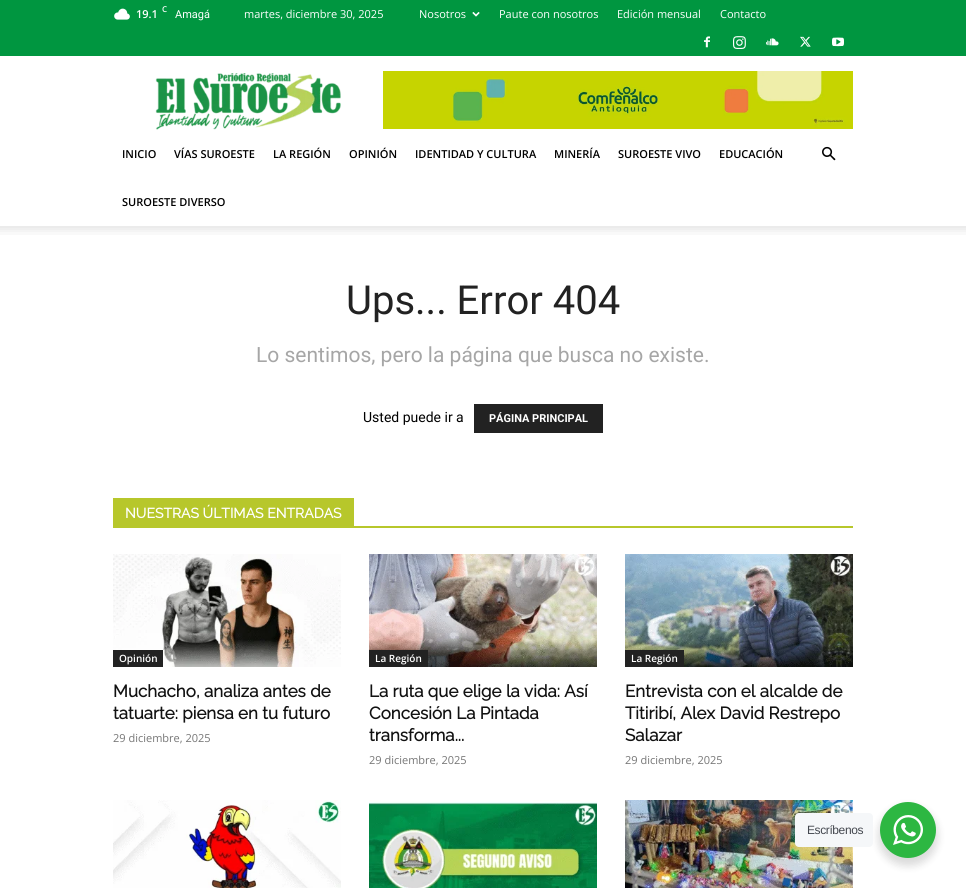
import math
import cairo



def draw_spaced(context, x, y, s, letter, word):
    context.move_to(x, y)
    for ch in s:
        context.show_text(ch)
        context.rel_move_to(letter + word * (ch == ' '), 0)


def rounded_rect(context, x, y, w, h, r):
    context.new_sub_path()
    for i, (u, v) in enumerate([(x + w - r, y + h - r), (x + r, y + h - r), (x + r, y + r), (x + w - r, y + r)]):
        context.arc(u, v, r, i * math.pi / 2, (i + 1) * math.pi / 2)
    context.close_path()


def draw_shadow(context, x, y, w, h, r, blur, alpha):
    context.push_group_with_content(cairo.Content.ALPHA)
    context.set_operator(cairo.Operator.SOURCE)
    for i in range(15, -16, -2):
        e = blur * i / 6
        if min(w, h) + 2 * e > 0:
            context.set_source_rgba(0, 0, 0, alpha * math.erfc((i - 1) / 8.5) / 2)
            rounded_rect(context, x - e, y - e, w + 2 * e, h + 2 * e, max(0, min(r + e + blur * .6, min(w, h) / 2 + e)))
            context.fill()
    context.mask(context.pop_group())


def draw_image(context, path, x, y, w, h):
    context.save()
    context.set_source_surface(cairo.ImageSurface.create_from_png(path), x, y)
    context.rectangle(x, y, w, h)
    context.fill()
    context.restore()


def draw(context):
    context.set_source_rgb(1, 1, 1)
    context.paint()
    context.set_source_rgb(0, 150 / 255, 64 / 255)
    context.rectangle(0, 0, 966, 56)
    context.fill()
    draw_image(context, "images/1.png", 114, 8, 16, 12)
    draw_image(context, "images/2.png", 472, 12, 8, 5)
    draw_image(context, "images/3.png", 704, 36, 6, 12)
    draw_image(context, "images/4.png", 733, 36, 13, 13)
    draw_image(context, "images/5.png", 766, 38, 13, 8)
    draw_image(context, "images/6.png", 800, 36, 11, 11)
    draw_image(context, "images/7.png", 832, 37, 12, 10)
    draw_image(context, "images/8.png", 155, 73, 186, 57)
    draw_image(context, "images/9.png", 383, 71, 470, 58)
    draw_image(context, "images/10.png", 822, 146, 14, 15)
    draw_image(context, "images/11.png", 0, 226, 966, 9)
    context.set_source_rgb(34 / 255, 34 / 255, 34 / 255)
    context.rectangle(474, 404, 129, 29)
    context.fill()
    context.set_source_rgb(183 / 255, 199 / 255, 43 / 255)
    context.rectangle(113, 526, 740, 2)
    context.fill()
    context.rectangle(113, 498, 241, 28)
    context.fill()
    draw_image(context, "images/12.png", 113, 554, 228, 113)
    context.set_source_rgb(34 / 255, 34 / 255, 34 / 255)
    context.rectangle(113, 650, 50, 17)
    context.fill()
    draw_image(context, "images/13.png", 369, 554, 228, 113)
    context.rectangle(369, 650, 59, 17)
    context.fill()
    draw_image(context, "images/14.png", 625, 554, 228, 113)
    context.rectangle(625, 650, 59, 17)
    context.fill()
    draw_image(context, "images/15.png", 113, 800, 228, 88)
    draw_image(context, "images/16.png", 369, 800, 228, 88)
    draw_image(context, "images/17.png", 625, 800, 228, 88)
    context.set_source_rgb(0, 0, 0)
    draw_shadow(context, 878, 806, 60, 60, 30, 4, 0.14)
    context.set_source_rgb(245 / 255, 247 / 255, 249 / 255)
    rounded_rect(context, 795, 813, 78, 34, 4)
    context.fill()
    context.set_source_rgb(45 / 255, 183 / 255, 66 / 255)
    context.arc(908, 830, 28, 0, 2 * math.pi)
    context.fill()
    draw_image(context, "images/18.png", 893, 815, 30, 30)
    context.select_font_face("Open Sans SemiBold")
    context.set_font_size(11)
    context.set_source_rgb(1, 1, 1)
    context.move_to(136, 18)
    context.show_text("19.1")
    context.set_font_size(8)
    context.move_to(162, 12)
    context.show_text("C")
    context.select_font_face("Roboto")
    context.set_font_size(11)
    context.move_to(175, 18)
    context.show_text("Amagá")
    context.select_font_face("Open Sans")
    context.move_to(244, 18)
    context.show_text("martes, diciembre 30, 2025")
    context.move_to(419, 18)
    context.show_text("Nosotros")
    context.move_to(499, 18)
    context.show_text("Paute con nosotros")
    context.move_to(617, 18)
    context.show_text("Edición mensual")
    context.move_to(720, 18)
    context.show_text("Contacto")
    context.select_font_face("Open Sans SemiBold")
    context.set_source_rgb(0, 0, 0)
    context.move_to(122, 158)
    context.show_text("INICIO")
    context.move_to(174, 158)
    context.show_text("VÍAS SUROESTE")
    context.move_to(273, 158)
    context.show_text("LA REGIÓN")
    context.move_to(349, 158)
    context.show_text("OPINIÓN")
    context.move_to(415, 158)
    context.show_text("IDENTIDAD Y CULTURA")
    context.move_to(554, 158)
    context.show_text("MINERÍA")
    context.move_to(618, 158)
    context.show_text("SUROESTE VIVO")
    context.move_to(719, 158)
    context.show_text("EDUCACIÓN")
    context.move_to(122, 206)
    context.show_text("SUROESTE DIVERSO")
    context.select_font_face("Roboto")
    context.set_font_size(40)
    context.set_source_rgb(34 / 255, 34 / 255, 34 / 255)
    context.move_to(346, 314)
    context.show_text("Ups... Error 404")
    context.set_font_size(21)
    context.set_source_rgb(166 / 255, 166 / 255, 166 / 255)
    context.move_to(256, 362)
    context.show_text("Lo sentimos, pero la página que busca no existe.")
    context.set_font_size(14)
    context.set_source_rgb(0, 0, 0)
    context.move_to(363, 422)
    context.show_text("Usted puede ir a")
    context.select_font_face("Roboto", cairo.FontSlant.NORMAL, cairo.FontWeight.BOLD)
    context.set_font_size(11)
    context.set_source_rgb(1, 1, 1)
    context.move_to(489, 422)
    context.show_text("PÁGINA PRINCIPAL")
    context.select_font_face("Raleway", cairo.FontSlant.NORMAL, cairo.FontWeight.BOLD)
    context.set_font_size(14)
    context.move_to(125, 518)
    context.show_text("NUESTRAS ÚLTIMAS ENTRADAS")
    context.select_font_face("Open Sans SemiBold")
    context.set_font_size(10)
    context.move_to(119, 662)
    context.show_text("Opinión")
    context.select_font_face("Raleway", cairo.FontSlant.NORMAL, cairo.FontWeight.BOLD)
    context.set_font_size(17)
    context.set_source_rgb(17 / 255, 17 / 255, 17 / 255)
    context.move_to(113, 697)
    context.show_text("Muchacho, analiza antes de")
    context.move_to(113, 719)
    context.show_text("tatuarte: piensa en tu futuro")
    context.select_font_face("Open Sans")
    context.set_font_size(11)
    context.set_source_rgb(118 / 255, 118 / 255, 118 / 255)
    context.move_to(113, 742)
    context.show_text("29 diciembre, 2025")
    context.select_font_face("Open Sans SemiBold")
    context.set_font_size(10)
    context.set_source_rgb(1, 1, 1)
    context.move_to(375, 662)
    context.show_text("La Región")
    context.select_font_face("Raleway", cairo.FontSlant.NORMAL, cairo.FontWeight.BOLD)
    context.set_font_size(17)
    context.set_source_rgb(17 / 255, 17 / 255, 17 / 255)
    context.move_to(369, 697)
    context.show_text("La ruta que elige la vida: Así")
    context.move_to(369, 719)
    context.show_text("Concesión La Pintada")
    context.move_to(369, 741)
    context.show_text("transforma...")
    context.select_font_face("Open Sans")
    context.set_font_size(11)
    context.set_source_rgb(118 / 255, 118 / 255, 118 / 255)
    context.move_to(369, 764)
    context.show_text("29 diciembre, 2025")
    context.select_font_face("Open Sans SemiBold")
    context.set_font_size(10)
    context.set_source_rgb(1, 1, 1)
    context.move_to(631, 662)
    context.show_text("La Región")
    context.select_font_face("Raleway", cairo.FontSlant.NORMAL, cairo.FontWeight.BOLD)
    context.set_font_size(17)
    context.set_source_rgb(17 / 255, 17 / 255, 17 / 255)
    context.move_to(625, 697)
    context.show_text("Entrevista con el alcalde de")
    context.move_to(625, 719)
    context.show_text("Titiribí, Alex David Restrepo")
    context.move_to(625, 741)
    context.show_text("Salazar")
    context.select_font_face("Open Sans")
    context.set_font_size(11)
    context.set_source_rgb(118 / 255, 118 / 255, 118 / 255)
    context.move_to(625, 764)
    context.show_text("29 diciembre, 2025")
    context.select_font_face("Liberation Sans")
    context.set_font_size(12)
    context.set_source_rgb(67 / 255, 71 / 255, 78 / 255)
    draw_spaced(context, 807, 834, "Escríbenos", -0.4, 0)


surface = cairo.ImageSurface(cairo.Format.RGB24, 966, 888)
context = cairo.Context(surface)
options = cairo.FontOptions()
options.set_hint_metrics(cairo.HintMetrics.OFF)
options.set_hint_style(cairo.HintStyle.NONE)
context.set_font_options(options)
context.set_miter_limit(4)
draw(context)
surface.write_to_png("out.png")
